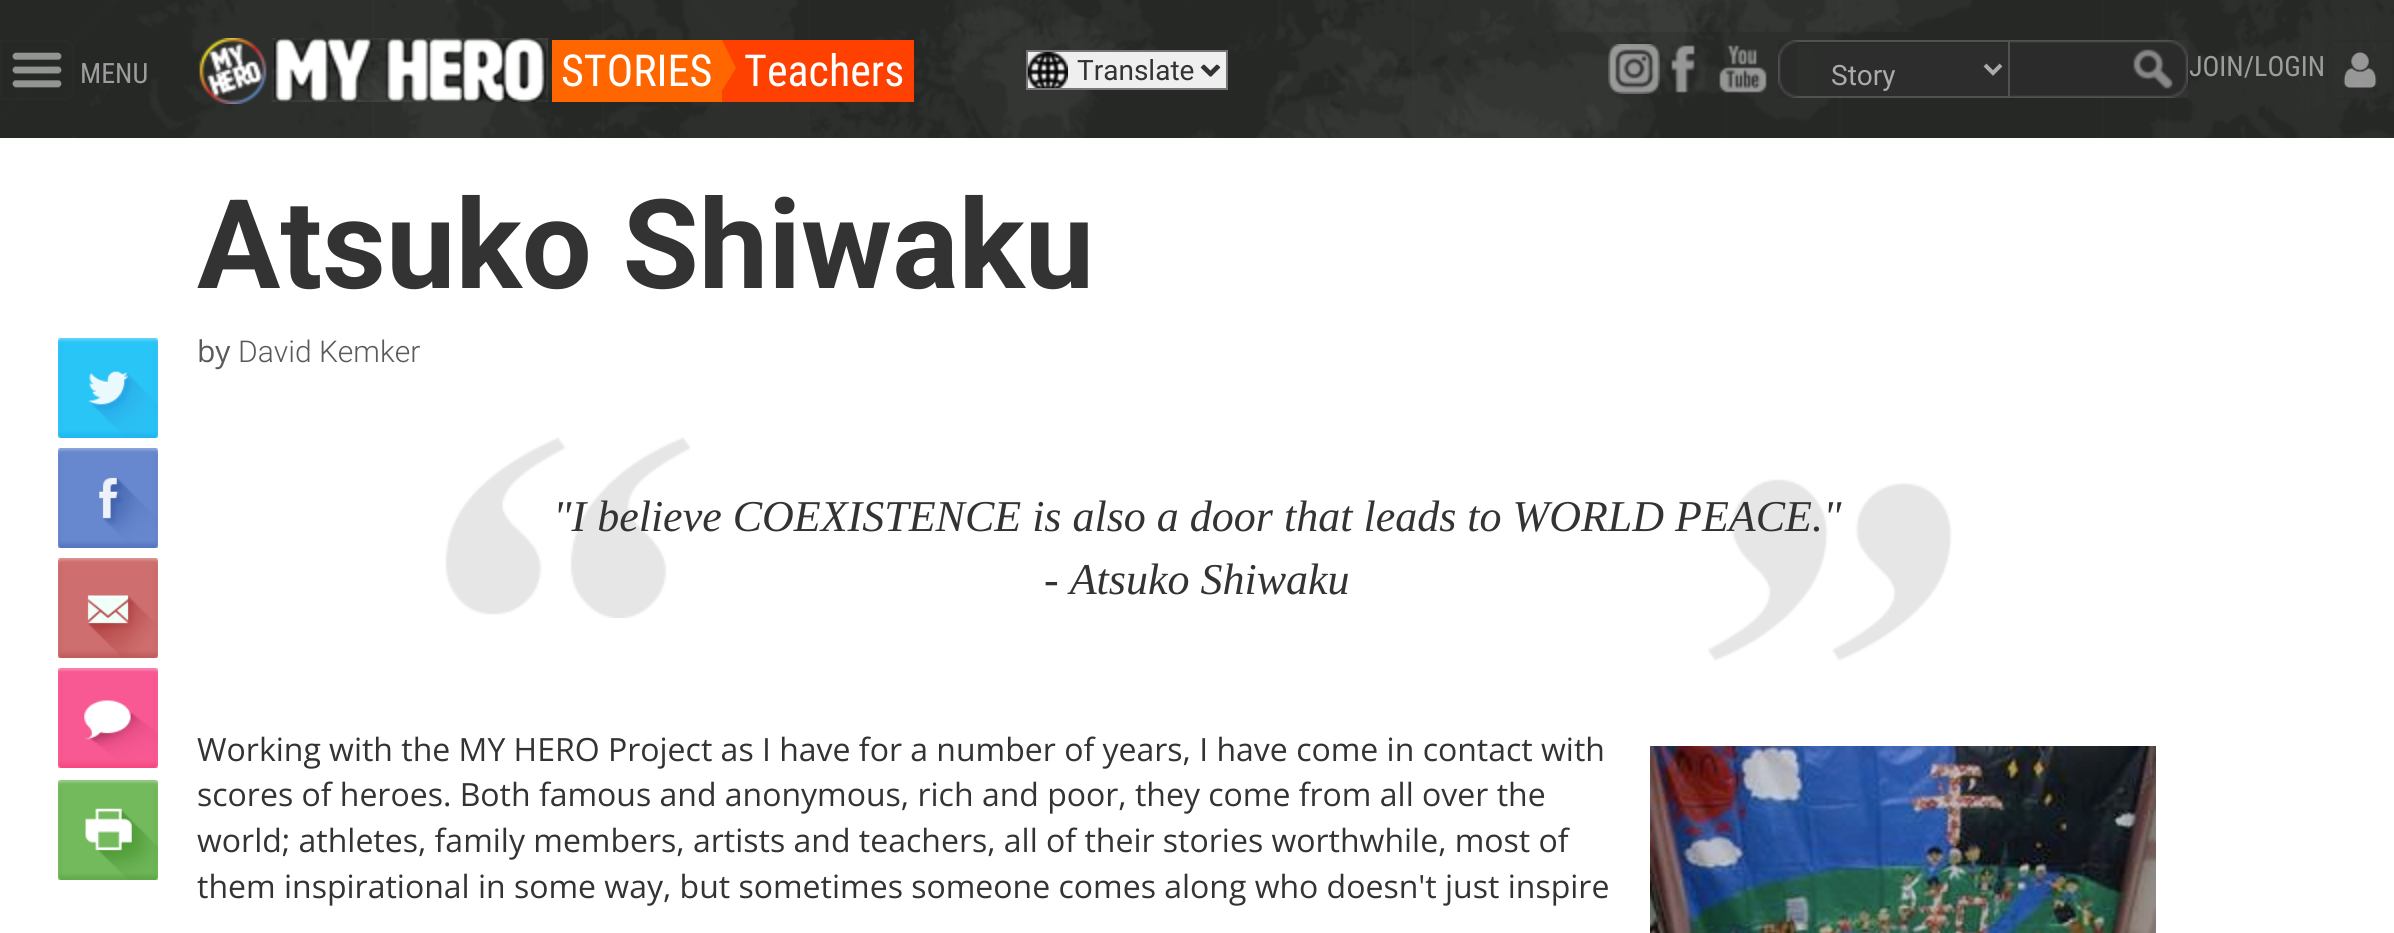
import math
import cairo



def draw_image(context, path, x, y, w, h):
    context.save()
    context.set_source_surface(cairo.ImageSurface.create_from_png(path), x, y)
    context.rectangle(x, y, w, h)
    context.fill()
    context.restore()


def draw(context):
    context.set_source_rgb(1, 1, 1)
    context.paint()
    draw_image(context, "images/1.png", 0, 0, 2394, 138)
    context.new_path()
    context.move_to(1, 41)
    context.line_to(64, 41)
    context.curve_to(69, 41, 73, 45, 73, 50)
    context.line_to(73, 90)
    context.curve_to(73, 95, 69, 99, 64, 99)
    context.line_to(1, 99)
    context.close_path()
    context.set_source_rgb(41 / 255, 42 / 255, 41 / 255)
    context.stroke()
    draw_image(context, "images/2.png", 12, 52, 50, 36)
    draw_image(context, "images/3.png", 199, 38, 68, 66)
    draw_image(context, "images/4.png", 271, 38, 277, 64)
    context.set_source_rgb(1, 102 / 255, 0)
    context.rectangle(552, 40, 170, 62)
    context.fill()
    context.set_source_rgb(254 / 255, 64 / 255, 0)
    context.rectangle(722, 40, 192, 62)
    context.fill()
    context.save()
    context.rectangle(720, 40, 50, 60)
    context.clip()
    context.set_source_rgb(1, 102 / 255, 0)
    context.new_path()
    context.move_to(736, 68)
    context.line_to(720, 36)
    context.line_to(720, 94)
    context.close_path()
    context.fill()
    context.restore()
    context.set_source_rgb(239 / 255, 239 / 255, 239 / 255)
    context.rectangle(1028, 52, 198, 36)
    context.fill()
    draw_image(context, "images/5.png", 1028, 52, 192, 36)
    context.rectangle(1027, 51, 200, 38)
    context.set_source_rgb(118 / 255, 118 / 255, 118 / 255)
    context.stroke()
    context.new_path()
    context.move_to(1203, 66)
    context.line_to(1211, 74)
    context.line_to(1219, 66)
    context.set_source_rgb(51 / 255, 51 / 255, 51 / 255)
    context.set_line_width(4)
    context.stroke()
    draw_image(context, "images/6.png", 1608, 44, 52, 50)
    draw_image(context, "images/7.png", 1671, 45, 24, 48)
    draw_image(context, "images/8.png", 1719, 45, 48, 48)
    draw_image(context, "images/9.png", 1778, 40, 20, 58)
    context.set_source_rgb(45 / 255, 45 / 255, 45 / 255)
    context.rectangle(1816, 44, 192, 52)
    context.fill()
    context.set_source_rgb(42 / 255, 42 / 255, 42 / 255)
    context.rectangle(1798, 42, 210, 2)
    context.fill()
    context.set_source_rgb(82 / 255, 82 / 255, 82 / 255)
    context.rectangle(1798, 40, 212, 2)
    context.fill()
    context.rectangle(2008, 40, 2, 58)
    context.fill()
    context.rectangle(1798, 96, 212, 2)
    context.fill()
    context.new_path()
    context.move_to(1985, 65)
    context.line_to(1993, 73)
    context.line_to(2001, 65)
    context.set_source_rgb(171 / 255, 171 / 255, 170 / 255)
    context.stroke()
    draw_image(context, "images/10.png", 2010, 40, 120, 58)
    draw_image(context, "images/11.png", 2130, 40, 58, 58)
    context.new_path()
    context.move_to(2336, 41)
    context.line_to(2393, 41)
    context.line_to(2393, 99)
    context.line_to(2336, 99)
    context.curve_to(2331, 99, 2327, 95, 2327, 90)
    context.line_to(2327, 50)
    context.curve_to(2327, 45, 2331, 41, 2336, 41)
    context.close_path()
    context.set_source_rgba(43 / 255, 43 / 255, 43 / 255, 0.5)
    context.set_line_width(2)
    context.stroke()
    draw_image(context, "images/12.png", 2343, 52, 34, 36)
    draw_image(context, "images/13.png", 58, 338, 100, 100)
    draw_image(context, "images/14.png", 58, 448, 100, 100)
    draw_image(context, "images/15.png", 58, 558, 100, 100)
    draw_image(context, "images/16.png", 58, 668, 100, 100)
    draw_image(context, "images/17.png", 58, 780, 100, 100)
    draw_image(context, "images/18.png", 445, 437, 1507, 224)
    draw_image(context, "images/19.png", 1650, 746, 506, 187)
    context.select_font_face("Roboto Condensed")
    context.set_font_size(28)
    context.set_source_rgb(157 / 255, 157 / 255, 157 / 255)
    context.move_to(80, 83)
    context.show_text("MENU")
    context.set_font_size(44)
    context.set_source_rgb(1, 1, 1)
    context.move_to(561, 86)
    context.show_text("STORIES")
    context.move_to(744, 86)
    context.show_text("Teachers")
    context.select_font_face("Roboto")
    context.set_font_size(28)
    context.set_source_rgb(51 / 255, 51 / 255, 51 / 255)
    context.move_to(1077, 80)
    context.show_text("Translate")
    context.set_source_rgb(171 / 255, 171 / 255, 170 / 255)
    context.move_to(1831, 85)
    context.show_text("Story")
    context.select_font_face("Roboto Condensed")
    context.set_source_rgb(157 / 255, 157 / 255, 157 / 255)
    context.move_to(2189, 76)
    context.show_text("JOIN/LOGIN")
    context.select_font_face("Roboto", cairo.FontSlant.NORMAL, cairo.FontWeight.BOLD)
    context.set_font_size(124)
    context.set_source_rgb(51 / 255, 51 / 255, 51 / 255)
    context.move_to(197, 288)
    context.show_text("Atsuko Shiwaku")
    context.select_font_face("Open Sans")
    context.set_font_size(30)
    context.set_source_rgb(90 / 255, 90 / 255, 90 / 255)
    context.move_to(197, 362)
    context.show_text("by")
    context.select_font_face("Roboto Light")
    context.move_to(238, 362)
    context.show_text("David Kemker")
    context.select_font_face("Liberation Serif", cairo.FontSlant.ITALIC)
    context.set_font_size(44)
    context.set_source_rgb(51 / 255, 51 / 255, 51 / 255)
    context.move_to(553, 531)
    context.show_text("\"I believe COEXISTENCE is also a door that leads to WORLD PEACE.\"")
    context.move_to(1044, 594)
    context.show_text("- Atsuko Shiwaku")
    context.select_font_face("Open Sans")
    context.set_font_size(32)
    context.move_to(197, 761)
    context.show_text("Working with the MY HERO Project as I have for a number of years, I have come in contact with")
    context.move_to(197, 806)
    context.show_text("scores of heroes. Both famous and anonymous, rich and poor, they come from all over the")
    context.move_to(197, 852)
    context.show_text("world; athletes, family members, artists and teachers, all of their stories worthwhile, most of")
    context.move_to(197, 898)
    context.show_text("them inspirational in some way, but sometimes someone comes along who doesn't just inspire")


surface = cairo.ImageSurface(cairo.Format.RGB24, 2394, 933)
context = cairo.Context(surface)
options = cairo.FontOptions()
options.set_hint_metrics(cairo.HintMetrics.OFF)
options.set_hint_style(cairo.HintStyle.NONE)
context.set_font_options(options)
context.set_miter_limit(4)
draw(context)
surface.write_to_png("out.png")
